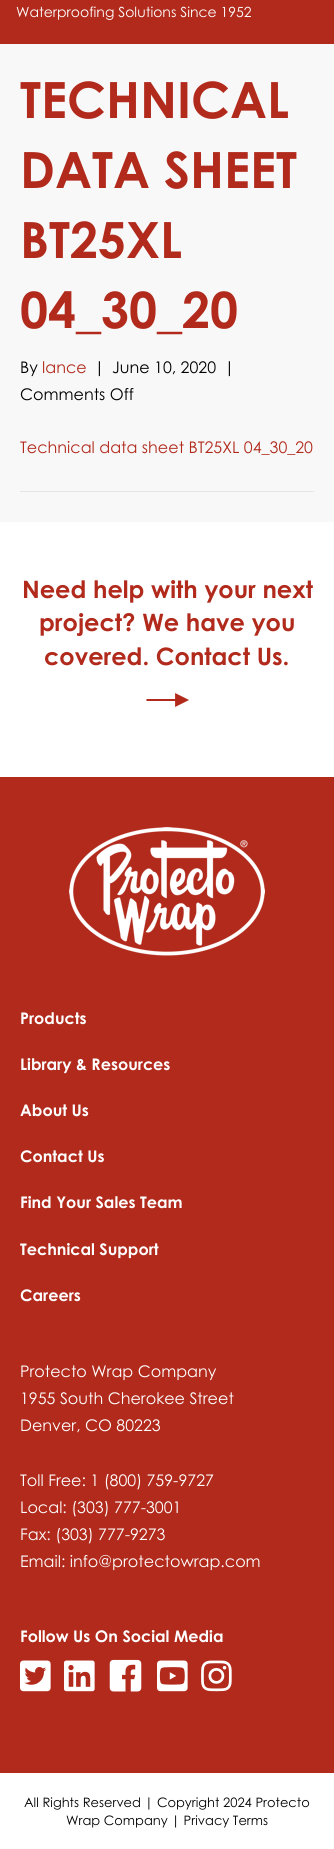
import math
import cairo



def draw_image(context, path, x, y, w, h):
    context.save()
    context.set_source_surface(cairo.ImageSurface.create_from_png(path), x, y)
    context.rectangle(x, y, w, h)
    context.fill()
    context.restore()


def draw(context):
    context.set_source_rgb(248 / 255, 248 / 255, 248 / 255)
    context.paint()
    context.set_source_rgb(177 / 255, 42 / 255, 28 / 255)
    context.rectangle(0, 0, 334, 44)
    context.fill()
    context.set_source_rgb(230 / 255, 230 / 255, 230 / 255)
    context.rectangle(20, 491, 294, 1)
    context.fill()
    context.set_source_rgb(1, 1, 1)
    context.rectangle(0, 522, 334, 255)
    context.fill()
    draw_image(context, "images/1.png", 146, 693, 43, 14)
    context.set_source_rgb(177 / 255, 42 / 255, 28 / 255)
    context.rectangle(0, 777, 334, 996)
    context.fill()
    draw_image(context, "images/2.png", 69, 827, 196, 129)
    draw_image(context, "images/3.png", 20, 1660, 31, 32)
    draw_image(context, "images/4.png", 64, 1660, 31, 32)
    draw_image(context, "images/5.png", 109, 1659, 33, 33)
    draw_image(context, "images/6.png", 157, 1660, 31, 32)
    draw_image(context, "images/7.png", 201, 1660, 31, 32)
    context.set_source_rgb(1, 1, 1)
    context.rectangle(0, 1773, 334, 76)
    context.fill()
    context.select_font_face("Century Gothic")
    context.set_font_size(14)
    context.move_to(16, 17)
    context.show_text("Waterproofing Solutions Since 1952")
    context.select_font_face("Century Gothic", cairo.FontSlant.NORMAL, cairo.FontWeight.BOLD)
    context.set_font_size(50)
    context.set_source_rgb(177 / 255, 42 / 255, 28 / 255)
    context.move_to(20, 118)
    context.show_text("TECHNICAL")
    context.move_to(20, 188)
    context.show_text("DATA SHEET")
    context.move_to(20, 258)
    context.show_text("BT25XL")
    context.move_to(20, 328)
    context.show_text("04_30_20")
    context.select_font_face("Century Gothic")
    context.set_font_size(16)
    context.set_source_rgb(0, 0, 0)
    context.move_to(20, 373)
    context.show_text("By")
    context.set_source_rgb(177 / 255, 42 / 255, 28 / 255)
    context.move_to(42, 373)
    context.show_text("lance")
    context.set_source_rgb(0, 0, 0)
    context.move_to(94, 373)
    context.show_text("|")
    context.move_to(112, 373)
    context.show_text("June 10, 2020")
    context.move_to(224, 373)
    context.show_text("|")
    context.move_to(20, 400)
    context.show_text("Comments Off")
    context.set_source_rgb(177 / 255, 42 / 255, 28 / 255)
    context.move_to(20, 453)
    context.show_text("Technical data sheet BT25XL 04_30_20")
    context.select_font_face("Century Gothic", cairo.FontSlant.NORMAL, cairo.FontWeight.BOLD)
    context.set_font_size(24)
    context.move_to(22, 598)
    context.show_text("Need help with your next")
    context.move_to(39, 631)
    context.show_text("project? We have you")
    context.move_to(44, 665)
    context.show_text("covered. Contact Us.")
    context.set_font_size(16)
    context.set_source_rgb(1, 1, 1)
    context.move_to(20, 1024)
    context.show_text("Products")
    context.move_to(20, 1070)
    context.show_text("Library & Resources")
    context.move_to(20, 1116)
    context.show_text("About Us")
    context.move_to(20, 1162)
    context.show_text("Contact Us")
    context.move_to(20, 1208)
    context.show_text("Find Your Sales Team")
    context.move_to(20, 1255)
    context.show_text("Technical Support")
    context.move_to(20, 1301)
    context.show_text("Careers")
    context.select_font_face("Century Gothic")
    context.move_to(20, 1377)
    context.show_text("Protecto Wrap Company")
    context.move_to(20, 1404)
    context.show_text("1955 South Cherokee Street")
    context.move_to(20, 1431)
    context.show_text("Denver, CO 80223")
    context.move_to(20, 1486)
    context.show_text("Toll Free: 1 (800) 759-9727")
    context.move_to(20, 1513)
    context.show_text("Local: (303) 777-3001")
    context.move_to(20, 1540)
    context.show_text("Fax: (303) 777-9273")
    context.move_to(20, 1567)
    context.show_text("Email: info@protectowrap.com")
    context.select_font_face("Century Gothic", cairo.FontSlant.NORMAL, cairo.FontWeight.BOLD)
    context.move_to(20, 1642)
    context.show_text("Follow Us On Social Media")
    context.select_font_face("Century Gothic")
    context.set_font_size(13)
    context.set_source_rgb(0, 0, 0)
    context.move_to(24, 1807)
    context.show_text("All Rights Reserved | Copyright 2024 Protecto")
    context.move_to(66, 1825)
    context.show_text("Wrap Company | Privacy Terms")


surface = cairo.ImageSurface(cairo.Format.RGB24, 334, 1849)
context = cairo.Context(surface)
options = cairo.FontOptions()
options.set_hint_metrics(cairo.HintMetrics.OFF)
options.set_hint_style(cairo.HintStyle.NONE)
context.set_font_options(options)
context.set_miter_limit(4)
draw(context)
surface.write_to_png("out.png")
